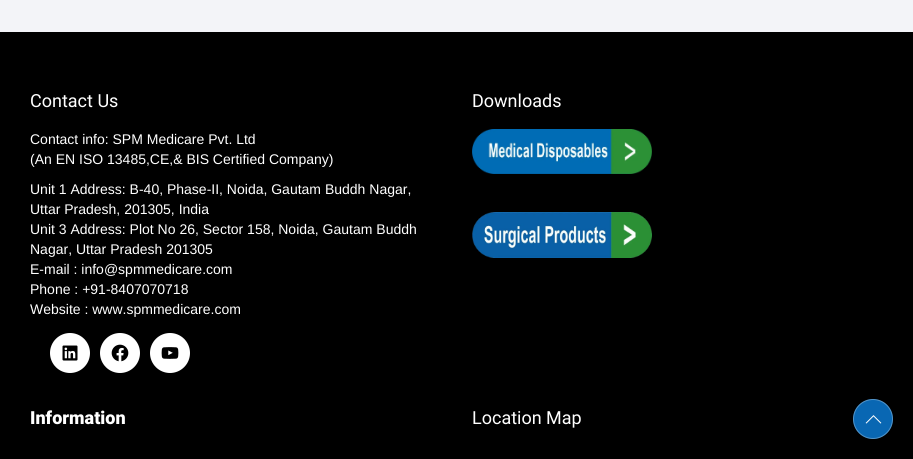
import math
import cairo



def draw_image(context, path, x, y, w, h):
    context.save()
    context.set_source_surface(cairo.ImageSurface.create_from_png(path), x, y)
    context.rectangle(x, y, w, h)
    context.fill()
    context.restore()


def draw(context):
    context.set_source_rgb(243 / 255, 244 / 255, 248 / 255)
    context.paint()
    context.set_source_rgb(0, 0, 0)
    context.rectangle(0, 32, 913, 427)
    context.fill()
    context.set_source_rgb(1, 1, 1)
    context.arc(70, 353, 20, 0, 2 * math.pi)
    context.fill()
    draw_image(context, "images/1.png", 62, 345, 16, 16)
    context.arc(120, 353, 20, 0, 2 * math.pi)
    context.fill()
    draw_image(context, "images/2.png", 111, 344, 18, 18)
    context.arc(170, 353, 20, 0, 2 * math.pi)
    context.fill()
    draw_image(context, "images/3.png", 161, 347, 18, 12)
    draw_image(context, "images/4.png", 472, 129, 180, 45)
    draw_image(context, "images/5.png", 472, 212, 180, 46)
    context.set_source_rgb(9 / 255, 103 / 255, 179 / 255)
    context.arc(873, 419, 20, 0, 2 * math.pi)
    context.fill()
    context.arc(873, 419, 19.5, 0, 2 * math.pi)
    context.set_source_rgba(1, 1, 1, 0.3)
    context.set_line_width(1)
    context.stroke()
    draw_image(context, "images/6.png", 865, 415, 17, 9)
    context.select_font_face("Roboto")
    context.set_font_size(18)
    context.set_source_rgb(1, 1, 1)
    context.move_to(30, 107)
    context.show_text("Contact Us")
    context.select_font_face("Liberation Sans")
    context.set_font_size(14)
    context.move_to(30, 144)
    context.show_text("Contact info: SPM Medicare Pvt. Ltd")
    context.move_to(30, 164)
    context.show_text("(An EN ISO 13485,CE,& BIS Certified Company)")
    context.move_to(30, 194)
    context.show_text("Unit 1 Address: B-40, Phase-II, Noida, Gautam Buddh Nagar,")
    context.move_to(30, 214)
    context.show_text("Uttar Pradesh, 201305, India")
    context.move_to(30, 234)
    context.show_text("Unit 3 Address: Plot No 26, Sector 158, Noida, Gautam Buddh")
    context.move_to(30, 254)
    context.show_text("Nagar, Uttar Pradesh 201305")
    context.move_to(30, 274)
    context.show_text("E-mail : info@spmmedicare.com")
    context.move_to(30, 294)
    context.show_text("Phone : +91-8407070718")
    context.move_to(30, 314)
    context.show_text("Website : www.spmmedicare.com")
    context.select_font_face("Roboto")
    context.set_font_size(18)
    context.move_to(472, 107)
    context.show_text("Downloads")
    context.select_font_face("Roboto Black")
    context.move_to(30, 424)
    context.show_text("Information")
    context.select_font_face("Roboto")
    context.move_to(472, 424)
    context.show_text("Location Map")


surface = cairo.ImageSurface(cairo.Format.RGB24, 913, 459)
context = cairo.Context(surface)
options = cairo.FontOptions()
options.set_hint_metrics(cairo.HintMetrics.OFF)
options.set_hint_style(cairo.HintStyle.NONE)
context.set_font_options(options)
context.set_miter_limit(4)
draw(context)
surface.write_to_png("out.png")
